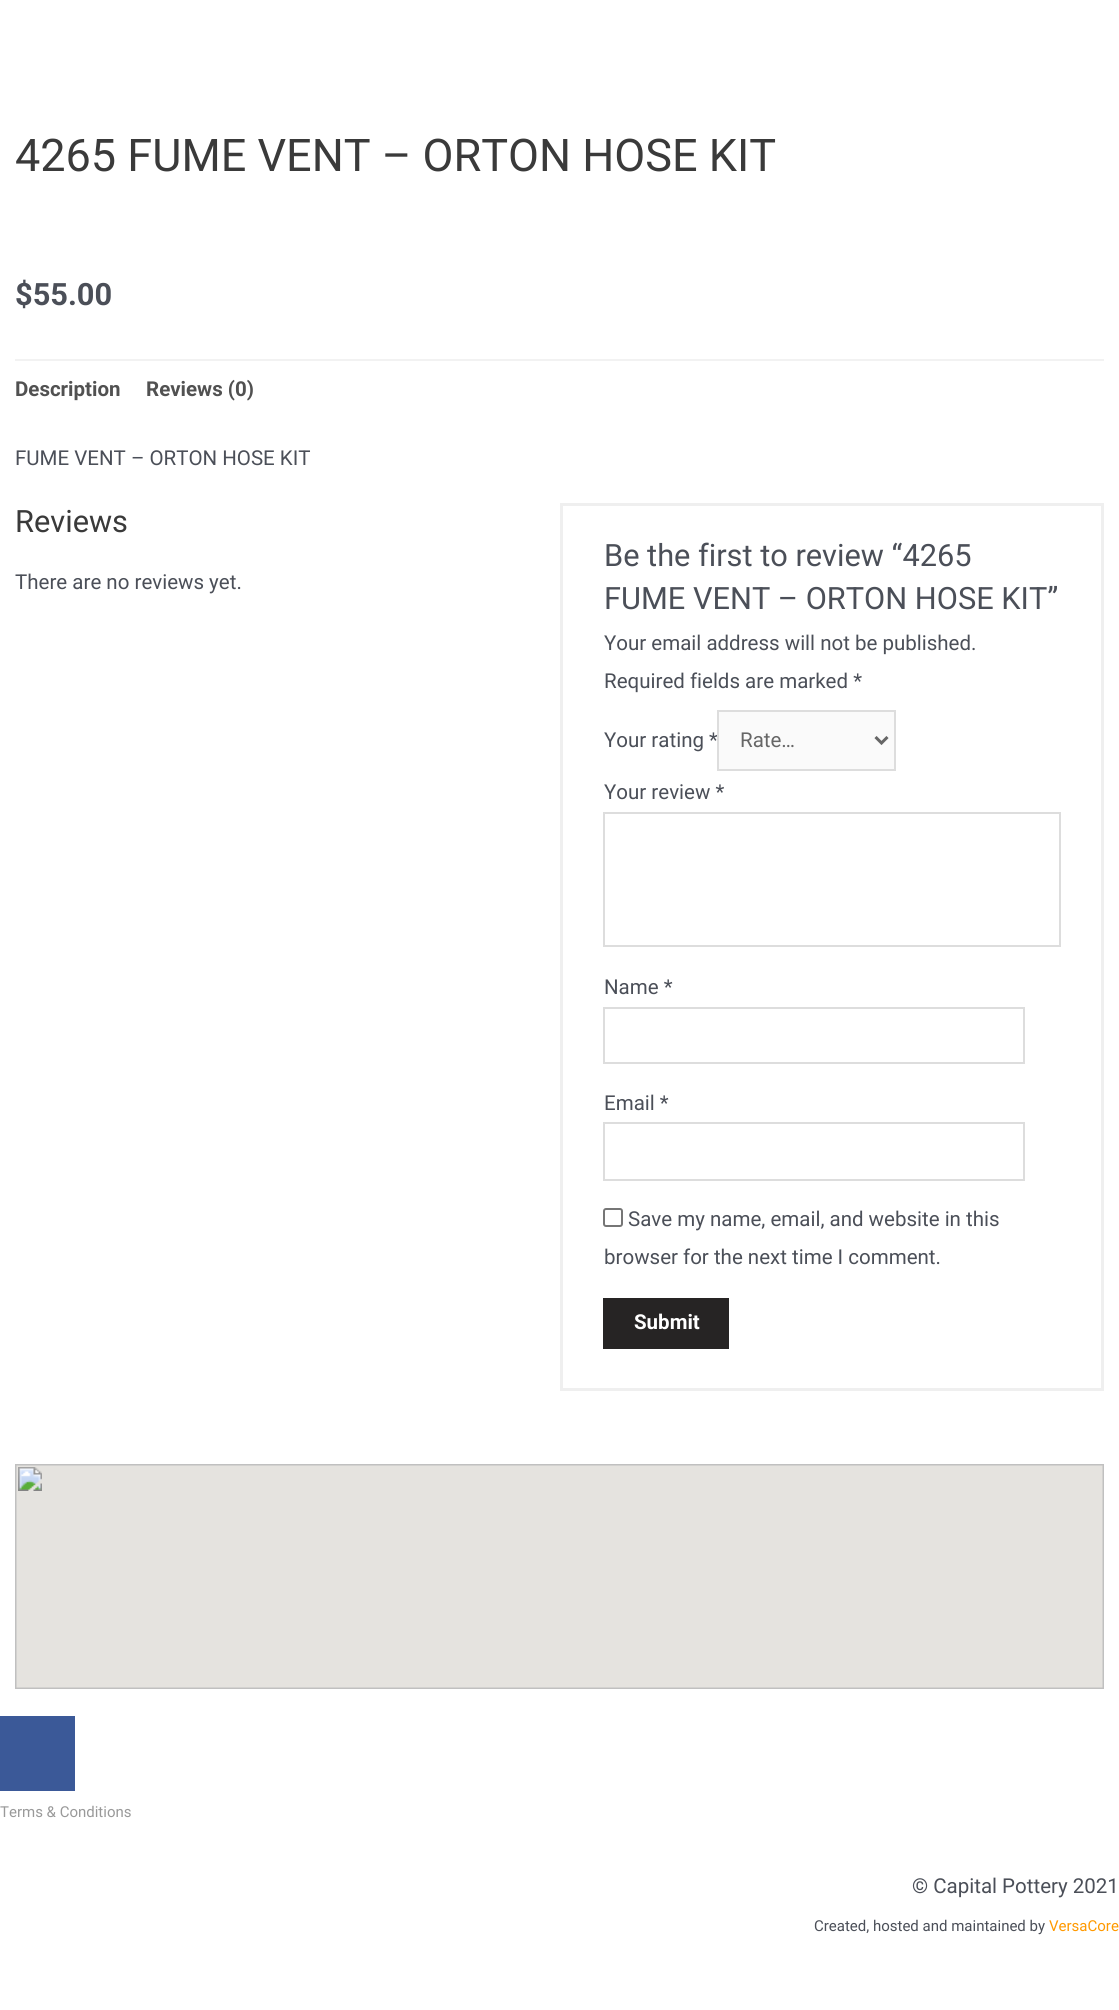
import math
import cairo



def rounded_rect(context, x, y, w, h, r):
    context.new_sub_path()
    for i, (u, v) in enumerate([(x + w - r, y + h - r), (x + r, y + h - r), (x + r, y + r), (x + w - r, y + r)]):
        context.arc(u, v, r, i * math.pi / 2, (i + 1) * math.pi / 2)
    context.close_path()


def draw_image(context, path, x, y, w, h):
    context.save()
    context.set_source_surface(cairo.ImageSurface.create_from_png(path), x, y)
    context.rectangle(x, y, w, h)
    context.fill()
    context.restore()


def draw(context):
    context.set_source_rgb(1, 1, 1)
    context.paint()
    context.set_source_rgb(242 / 255, 242 / 255, 242 / 255)
    context.rectangle(15, 359, 1089, 2)
    context.fill()
    context.rectangle(561.5, 504.5, 541, 885)
    context.set_source_rgb(239 / 255, 239 / 255, 239 / 255)
    context.set_line_width(3)
    context.stroke()
    context.rectangle(604, 813, 456, 133)
    context.set_source_rgb(221 / 255, 221 / 255, 221 / 255)
    context.set_line_width(2)
    context.stroke()
    context.rectangle(604, 1008, 420, 55)
    context.stroke()
    context.rectangle(604, 1123, 420, 57)
    context.stroke()
    rounded_rect(context, 604, 1209, 18, 17, 2)
    context.set_source_rgb(118 / 255, 118 / 255, 118 / 255)
    context.stroke()
    context.set_source_rgb(38 / 255, 36 / 255, 36 / 255)
    context.rectangle(603, 1298, 126, 51)
    context.fill()
    draw_image(context, "images/1.png", 15, 1464, 1089, 225)
    context.set_source_rgb(59 / 255, 89 / 255, 152 / 255)
    context.rectangle(0, 1716, 75, 75)
    context.fill()
    context.select_font_face("Roboto")
    context.set_font_size(45)
    context.set_source_rgb(58 / 255, 58 / 255, 58 / 255)
    context.move_to(15, 171)
    context.show_text("4265 FUME VENT – ORTON HOSE KIT")
    context.select_font_face("Roboto", cairo.FontSlant.NORMAL, cairo.FontWeight.BOLD)
    context.set_font_size(30.75)
    context.set_source_rgb(75 / 255, 79 / 255, 88 / 255)
    context.move_to(15, 305)
    context.show_text("$55.00")
    context.set_font_size(20.5)
    context.set_source_rgb(81 / 255, 81 / 255, 81 / 255)
    context.move_to(15, 396)
    context.show_text("Description")
    context.move_to(146, 396)
    context.show_text("Reviews (0)")
    context.select_font_face("Roboto")
    context.set_source_rgb(75 / 255, 79 / 255, 88 / 255)
    context.move_to(15, 465)
    context.show_text("FUME VENT – ORTON HOSE KIT")
    context.set_font_size(30.75)
    context.set_source_rgb(58 / 255, 58 / 255, 58 / 255)
    context.move_to(15, 532)
    context.show_text("Reviews")
    context.set_font_size(20.5)
    context.set_source_rgb(75 / 255, 79 / 255, 88 / 255)
    context.move_to(15, 589)
    context.show_text("There are no reviews yet.")
    context.set_font_size(30.75)
    context.move_to(604, 566)
    context.show_text("Be the first to review “4265")
    context.move_to(604, 609)
    context.show_text("FUME VENT – ORTON HOSE KIT”")
    context.set_font_size(20.5)
    context.move_to(604, 650)
    context.show_text("Your email address will not be published.")
    context.move_to(604, 688)
    context.show_text("Required fields are marked *")
    context.move_to(604, 747)
    context.show_text("Your rating *")
    context.set_source_rgb(250 / 255, 250 / 255, 250 / 255)
    context.rectangle(718, 711, 177, 59)
    context.fill_preserve()
    context.set_source_rgb(221 / 255, 221 / 255, 221 / 255)
    context.stroke()
    context.new_path()
    context.move_to(875.5, 737)
    context.line_to(881.5, 743)
    context.line_to(887.5, 737)
    context.set_source_rgb(102 / 255, 102 / 255, 102 / 255)
    context.set_line_width(3)
    context.stroke()
    context.move_to(740, 747)
    context.show_text("Rate…")
    context.set_source_rgb(75 / 255, 79 / 255, 88 / 255)
    context.move_to(604, 799)
    context.show_text("Your review *")
    context.move_to(604, 994)
    context.show_text("Name *")
    context.move_to(604, 1110)
    context.show_text("Email *")
    context.move_to(628, 1226)
    context.show_text("Save my name, email, and website in this")
    context.move_to(604, 1264)
    context.show_text("browser for the next time I comment.")
    context.select_font_face("Roboto", cairo.FontSlant.NORMAL, cairo.FontWeight.BOLD)
    context.set_source_rgb(1, 1, 1)
    context.move_to(634, 1329)
    context.show_text("Submit")
    context.select_font_face("Roboto")
    context.set_font_size(15)
    context.set_source_rgb(153 / 255, 153 / 255, 153 / 255)
    context.move_to(0, 1817)
    context.show_text("Terms & Conditions")
    context.set_font_size(20.5)
    context.set_source_rgb(75 / 255, 79 / 255, 88 / 255)
    context.move_to(912, 1893)
    context.show_text("© Capital Pottery 2021")
    context.set_font_size(15)
    context.move_to(814, 1931)
    context.show_text("Created, hosted and maintained by")
    context.set_source_rgb(1, 153 / 255, 0)
    context.move_to(1049, 1931)
    context.show_text("VersaCore")


surface = cairo.ImageSurface(cairo.Format.RGB24, 1119, 2010)
context = cairo.Context(surface)
options = cairo.FontOptions()
options.set_hint_metrics(cairo.HintMetrics.OFF)
options.set_hint_style(cairo.HintStyle.NONE)
context.set_font_options(options)
context.set_miter_limit(4)
draw(context)
surface.write_to_png("out.png")
